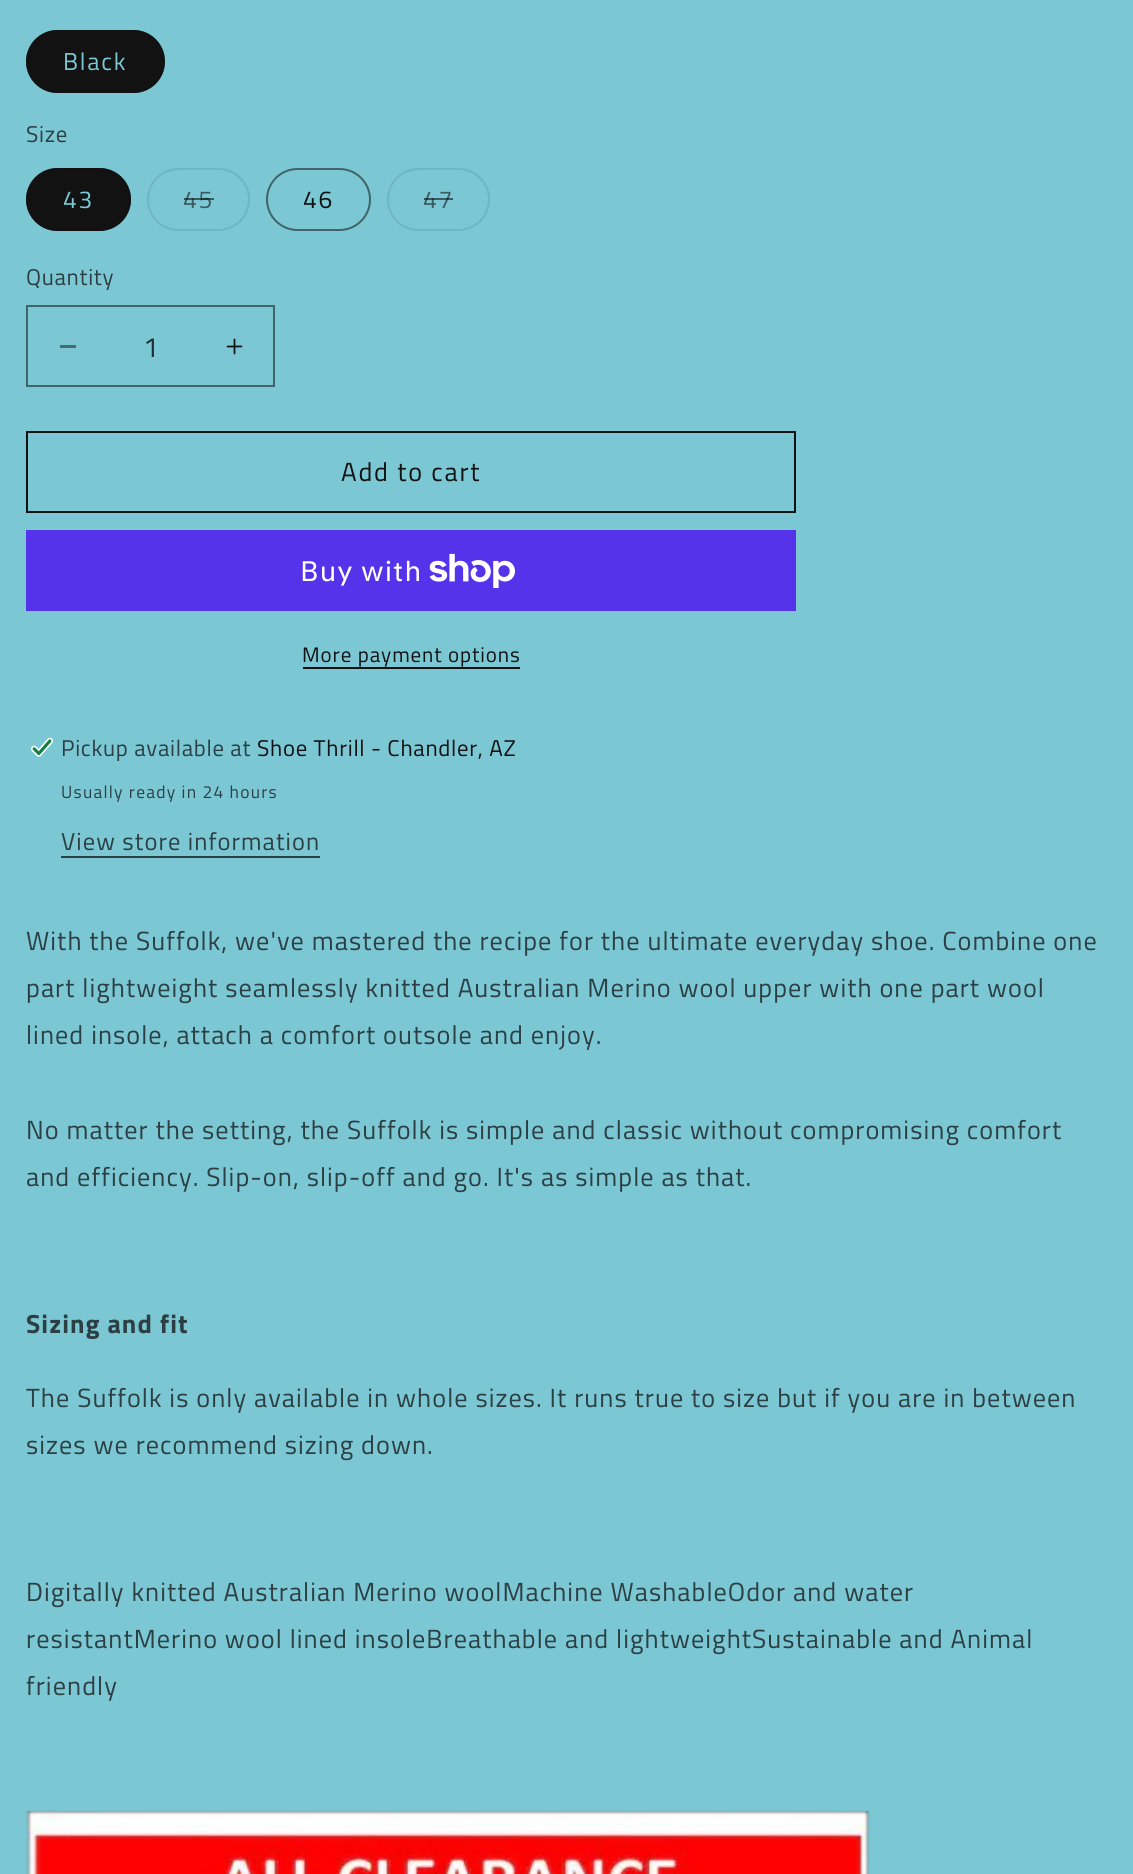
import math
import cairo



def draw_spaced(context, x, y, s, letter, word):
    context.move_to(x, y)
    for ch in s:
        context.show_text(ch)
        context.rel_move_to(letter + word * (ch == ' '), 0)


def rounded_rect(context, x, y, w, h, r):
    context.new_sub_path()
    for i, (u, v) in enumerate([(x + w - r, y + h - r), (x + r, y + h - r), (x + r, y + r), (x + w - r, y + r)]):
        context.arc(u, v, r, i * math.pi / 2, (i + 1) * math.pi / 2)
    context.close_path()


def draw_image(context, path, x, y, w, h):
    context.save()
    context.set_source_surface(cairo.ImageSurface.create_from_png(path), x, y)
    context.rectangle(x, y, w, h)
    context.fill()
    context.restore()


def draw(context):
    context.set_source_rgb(123 / 255, 199 / 255, 212 / 255)
    context.paint()
    context.set_source_rgb(18 / 255, 18 / 255, 18 / 255)
    rounded_rect(context, 26, 30, 139, 63, 31.5)
    context.fill()
    rounded_rect(context, 27, 31, 137, 61, 30.5)
    context.set_source_rgba(18 / 255, 18 / 255, 18 / 255, 0.55)
    context.stroke()
    context.set_source_rgb(18 / 255, 18 / 255, 18 / 255)
    rounded_rect(context, 26, 168, 105, 63, 31.5)
    context.fill()
    rounded_rect(context, 27, 169, 103, 61, 30.5)
    context.set_source_rgba(18 / 255, 18 / 255, 18 / 255, 0.55)
    context.stroke()
    rounded_rect(context, 148, 169, 101, 61, 30.5)
    context.set_source_rgb(113 / 255, 181 / 255, 193 / 255)
    context.stroke()
    rounded_rect(context, 267, 169, 103, 61, 30.5)
    context.set_source_rgb(65 / 255, 99 / 255, 105 / 255)
    context.stroke()
    rounded_rect(context, 388, 169, 101, 61, 30.5)
    context.set_source_rgb(113 / 255, 181 / 255, 193 / 255)
    context.stroke()
    context.set_source_rgb(71 / 255, 109 / 255, 115 / 255)
    context.rectangle(60, 345, 16, 3)
    context.fill()
    draw_image(context, "images/1.png", 226, 338, 17, 17)
    context.rectangle(27, 306, 247, 80)
    context.set_source_rgb(65 / 255, 99 / 255, 105 / 255)
    context.stroke()
    context.rectangle(27, 432, 768, 80)
    context.set_source_rgb(18 / 255, 18 / 255, 18 / 255)
    context.stroke()
    context.set_source_rgb(84 / 255, 51 / 255, 235 / 255)
    context.rectangle(26, 530, 770, 81)
    context.fill()
    draw_image(context, "images/2.png", 429, 553, 86, 35)
    context.set_source_rgb(18 / 255, 18 / 255, 18 / 255)
    context.rectangle(303, 667, 217, 2)
    context.fill()
    draw_image(context, "images/3.png", 31, 737, 22, 20)
    context.set_source_rgb(44 / 255, 63 / 255, 67 / 255)
    context.rectangle(61, 856, 259, 2)
    context.fill()
    context.rectangle(27, 1811, 842, 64)
    context.set_source_rgb(118 / 255, 190 / 255, 202 / 255)
    context.stroke()
    draw_image(context, "images/4.png", 27, 1810, 842, 64)
    context.select_font_face("Titillium Web")
    context.set_font_size(24.5)
    context.set_source_rgb(123 / 255, 199 / 255, 212 / 255)
    draw_spaced(context, 63, 70, "Black", 1.75, 0)
    context.set_font_size(22.75)
    context.set_source_rgb(44 / 255, 63 / 255, 67 / 255)
    draw_spaced(context, 26, 142, "Size", 0.7, 0)
    context.set_font_size(24.5)
    context.set_source_rgb(123 / 255, 199 / 255, 212 / 255)
    draw_spaced(context, 63, 208, "43", 1.75, 0)
    context.set_source_rgb(60 / 255, 90 / 255, 96 / 255)
    draw_spaced(context, 183, 208, "45", 1.75, 0)
    context.set_source_rgba(18 / 255, 18 / 255, 18 / 255, 0.6)
    context.rectangle(184, 198, 30, 2)
    context.fill()
    context.set_source_rgb(18 / 255, 18 / 255, 18 / 255)
    draw_spaced(context, 303, 208, "46", 1.75, 0)
    context.set_source_rgb(60 / 255, 90 / 255, 96 / 255)
    draw_spaced(context, 423, 208, "47", 1.75, 0)
    context.set_source_rgba(18 / 255, 18 / 255, 18 / 255, 0.6)
    context.rectangle(424, 198, 29, 2)
    context.fill()
    context.set_font_size(22.75)
    context.set_source_rgb(44 / 255, 63 / 255, 67 / 255)
    draw_spaced(context, 26, 285, "Quantity", 0.7, 0)
    context.set_font_size(28)
    context.set_source_rgb(34 / 255, 45 / 255, 47 / 255)
    context.move_to(143, 357)
    context.show_text("1")
    context.set_font_size(26.25)
    context.set_source_rgb(18 / 255, 18 / 255, 18 / 255)
    draw_spaced(context, 341, 481, "Add to cart", 1.75, 0)
    context.select_font_face("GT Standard")
    context.set_font_size(28)
    context.set_source_rgb(1, 1, 1)
    draw_spaced(context, 300, 581, "Buy with", 1.05, 0)
    context.select_font_face("Titillium Web")
    context.set_font_size(21)
    context.set_source_rgb(18 / 255, 18 / 255, 18 / 255)
    draw_spaced(context, 302, 662, "More payment options", 0.9, 0)
    context.set_font_size(22.75)
    context.set_source_rgb(44 / 255, 63 / 255, 67 / 255)
    draw_spaced(context, 61, 756, "Pickup available at", 0.7, 0)
    context.set_source_rgb(18 / 255, 18 / 255, 18 / 255)
    draw_spaced(context, 257, 756, "Shoe Thrill - Chandler, AZ", 0.7, 0)
    context.set_font_size(17.5)
    context.set_source_rgb(44 / 255, 63 / 255, 67 / 255)
    draw_spaced(context, 61, 798, "Usually ready in 24 hours", 1.25, 0)
    context.set_font_size(24.5)
    draw_spaced(context, 61, 850, "View store information", 1.05, 0)
    context.set_font_size(26.25)
    draw_spaced(context, 26, 950, "With the Suffolk, we've mastered the recipe for the ultimate everyday shoe. Combine one", 1.05, 0)
    draw_spaced(context, 26, 997, "part lightweight seamlessly knitted Australian Merino wool upper with one part wool", 1.05, 0)
    draw_spaced(context, 26, 1044, "lined insole, attach a comfort outsole and enjoy.", 1.05, 0)
    draw_spaced(context, 26, 1139, "No matter the setting, the Suffolk is simple and classic without compromising comfort", 1.05, 0)
    draw_spaced(context, 26, 1186, "and efficiency. Slip-on, slip-off and go. It's as simple as that.", 1.05, 0)
    context.select_font_face("Titillium Web", cairo.FontSlant.NORMAL, cairo.FontWeight.BOLD)
    draw_spaced(context, 26, 1333, "Sizing and fit", 1.05, 0)
    context.select_font_face("Titillium Web")
    draw_spaced(context, 26, 1407, "The Suffolk is only available in whole sizes. It runs true to size but if you are in between", 1.05, 0)
    draw_spaced(context, 26, 1454, "sizes we recommend sizing down.", 1.05, 0)
    draw_spaced(context, 26, 1601, "Digitally knitted Australian Merino woolMachine WashableOdor and water", 1.05, 0)
    draw_spaced(context, 26, 1648, "resistantMerino wool lined insoleBreathable and lightweightSustainable and Animal", 1.05, 0)
    draw_spaced(context, 26, 1695, "friendly", 1.05, 0)


surface = cairo.ImageSurface(cairo.Format.RGB24, 1133, 1874)
context = cairo.Context(surface)
options = cairo.FontOptions()
options.set_hint_metrics(cairo.HintMetrics.OFF)
options.set_hint_style(cairo.HintStyle.NONE)
context.set_font_options(options)
context.set_miter_limit(4)
draw(context)
surface.write_to_png("out.png")
